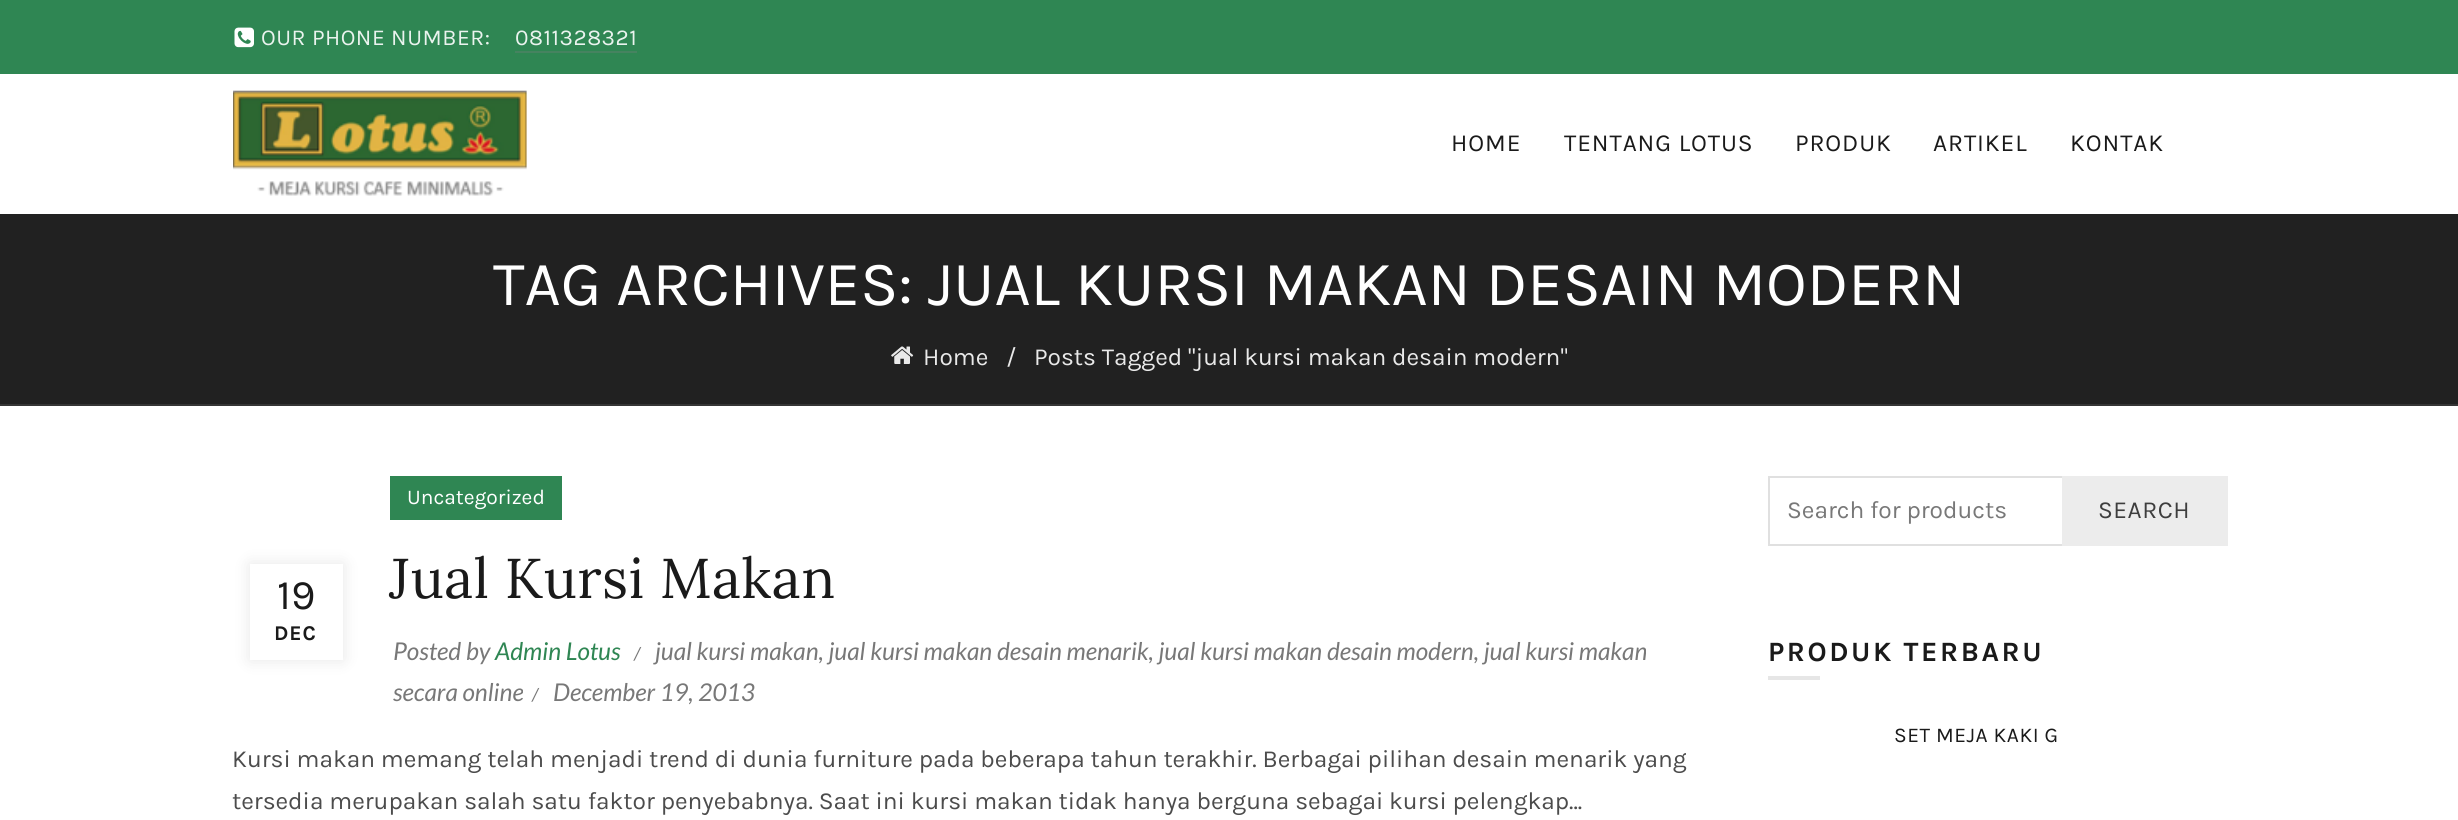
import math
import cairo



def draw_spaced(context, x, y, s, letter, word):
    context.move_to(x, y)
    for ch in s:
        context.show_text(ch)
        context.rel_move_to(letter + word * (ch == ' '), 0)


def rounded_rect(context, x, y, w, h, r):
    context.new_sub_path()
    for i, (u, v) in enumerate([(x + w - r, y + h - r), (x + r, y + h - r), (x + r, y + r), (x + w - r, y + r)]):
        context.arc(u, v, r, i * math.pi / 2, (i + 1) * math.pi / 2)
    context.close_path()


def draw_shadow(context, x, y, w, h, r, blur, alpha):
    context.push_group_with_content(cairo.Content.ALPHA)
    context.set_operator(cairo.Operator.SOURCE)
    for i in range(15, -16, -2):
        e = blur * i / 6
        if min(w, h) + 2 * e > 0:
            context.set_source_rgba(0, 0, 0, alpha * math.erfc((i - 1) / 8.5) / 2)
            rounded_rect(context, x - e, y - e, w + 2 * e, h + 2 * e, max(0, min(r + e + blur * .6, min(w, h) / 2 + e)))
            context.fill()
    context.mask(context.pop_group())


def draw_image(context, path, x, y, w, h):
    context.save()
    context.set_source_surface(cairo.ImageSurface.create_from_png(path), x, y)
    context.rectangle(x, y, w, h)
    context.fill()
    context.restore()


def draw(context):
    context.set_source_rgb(1, 1, 1)
    context.paint()
    context.set_source_rgb(47 / 255, 134 / 255, 83 / 255)
    context.rectangle(0, 0, 2458, 74)
    context.fill()
    draw_image(context, "images/1.png", 234, 27, 20, 21)
    context.set_source_rgb(70 / 255, 131 / 255, 96 / 255)
    context.rectangle(515, 51, 122, 2)
    context.fill()
    draw_image(context, "images/2.png", 233, 90, 294, 106)
    context.set_source_rgb(33 / 255, 33 / 255, 33 / 255)
    context.rectangle(0, 214, 2458, 190)
    context.fill()
    context.set_source_rgb(53 / 255, 53 / 255, 53 / 255)
    context.rectangle(0, 404, 2458, 2)
    context.fill()
    draw_image(context, "images/3.png", 891, 346, 23, 18)
    context.set_source_rgb(0, 0, 0)
    draw_shadow(context, 250, 564, 93, 96, 0, 8, 0.1)
    context.set_source_rgb(1, 1, 1)
    context.rectangle(250, 564, 93, 96)
    context.fill()
    context.set_source_rgb(47 / 255, 134 / 255, 83 / 255)
    context.rectangle(390, 476, 172, 44)
    context.fill()
    context.rectangle(1769, 477, 458, 68)
    context.set_source_rgb(224 / 255, 224 / 255, 224 / 255)
    context.stroke()
    context.set_source_rgb(236 / 255, 236 / 255, 236 / 255)
    context.rectangle(2062, 476, 166, 70)
    context.fill()
    context.set_source_rgb(230 / 255, 230 / 255, 230 / 255)
    context.rectangle(1768, 676, 52, 4)
    context.fill()
    context.select_font_face("Karla")
    context.set_font_size(22.75)
    context.set_source_rgb(234 / 255, 243 / 255, 238 / 255)
    draw_spaced(context, 261, 45, "OUR PHONE NUMBER:", 0.5, 0)
    draw_spaced(context, 515, 45, "0811328321", 0.5, 0)
    context.set_font_size(24.5)
    context.set_source_rgb(26 / 255, 26 / 255, 26 / 255)
    draw_spaced(context, 1451, 151, "HOME", 0.9, 0)
    draw_spaced(context, 1564, 151, "TENTANG LOTUS", 0.9, 0)
    draw_spaced(context, 1795, 151, "PRODUK", 0.9, 0)
    draw_spaced(context, 1933, 151, "ARTIKEL", 0.9, 0)
    draw_spaced(context, 2070, 151, "KONTAK", 0.9, 0)
    context.set_font_size(63)
    context.set_source_rgb(1, 1, 1)
    context.move_to(493, 305)
    context.show_text("TAG ARCHIVES: JUAL KURSI MAKAN DESAIN MODERN")
    context.set_font_size(24.5)
    context.set_source_rgb(233 / 255, 233 / 255, 233 / 255)
    context.move_to(923, 365)
    context.show_text("Home")
    context.move_to(1006, 365)
    context.show_text("/")
    context.move_to(1034, 365)
    context.show_text("Posts Tagged \"jual kursi makan desain modern\"")
    context.set_font_size(42)
    context.set_source_rgb(26 / 255, 26 / 255, 26 / 255)
    context.move_to(277, 609)
    context.show_text("19")
    context.select_font_face("Karla", cairo.FontSlant.NORMAL, cairo.FontWeight.BOLD)
    context.set_font_size(21)
    draw_spaced(context, 274, 640, "DEC", 0.9, 0)
    context.select_font_face("Karla")
    context.set_source_rgb(1, 1, 1)
    context.move_to(407, 504)
    context.show_text("Uncategorized")
    context.select_font_face("Lora")
    context.set_font_size(56)
    context.set_source_rgb(26 / 255, 26 / 255, 26 / 255)
    draw_spaced(context, 389, 598, "Jual Kursi Makan", 0.5, 0)
    context.select_font_face("Lato", cairo.FontSlant.ITALIC)
    context.set_font_size(18)
    context.set_source_rgb(120 / 255, 120 / 255, 120 / 255)
    context.move_to(634, 660)
    context.show_text("/")
    context.set_font_size(24.5)
    context.move_to(655, 660)
    context.show_text("jual kursi makan, jual kursi makan desain menarik, jual kursi makan desain modern, jual kursi makan")
    context.move_to(393, 701)
    context.show_text("secara online")
    context.move_to(393, 660)
    context.show_text("Posted by")
    context.set_source_rgb(47 / 255, 134 / 255, 83 / 255)
    context.move_to(495, 660)
    context.show_text("Admin Lotus")
    context.set_font_size(18)
    context.set_source_rgb(120 / 255, 120 / 255, 120 / 255)
    context.move_to(532, 701)
    context.show_text("/")
    context.set_font_size(24.5)
    context.move_to(553, 701)
    context.show_text("December 19, 2013")
    context.select_font_face("Karla")
    context.set_source_rgb(76 / 255, 76 / 255, 76 / 255)
    context.move_to(232, 767)
    context.show_text("Kursi makan memang telah menjadi trend di dunia furniture pada beberapa tahun terakhir. Berbagai pilihan desain menarik yang")
    context.move_to(232, 809)
    context.show_text("tersedia merupakan salah satu faktor penyebabnya. Saat ini kursi makan tidak hanya berguna sebagai kursi pelengkap...")
    context.set_source_rgb(120 / 255, 120 / 255, 120 / 255)
    context.move_to(1787, 518)
    context.show_text("Search for products")
    context.set_source_rgb(62 / 255, 62 / 255, 62 / 255)
    draw_spaced(context, 2098, 518, "SEARCH", 0.5, 0)
    context.select_font_face("Karla", cairo.FontSlant.NORMAL, cairo.FontWeight.BOLD)
    context.set_font_size(28)
    context.set_source_rgb(26 / 255, 26 / 255, 26 / 255)
    draw_spaced(context, 1768, 661, "PRODUK TERBARU", 2.6, 0)
    context.select_font_face("Karla")
    context.set_font_size(21)
    draw_spaced(context, 1894, 742, "SET MEJA KAKI G", 0.5, 0)


surface = cairo.ImageSurface(cairo.Format.RGB24, 2458, 820)
context = cairo.Context(surface)
options = cairo.FontOptions()
options.set_hint_metrics(cairo.HintMetrics.OFF)
options.set_hint_style(cairo.HintStyle.NONE)
context.set_font_options(options)
context.set_miter_limit(4)
draw(context)
surface.write_to_png("out.png")
